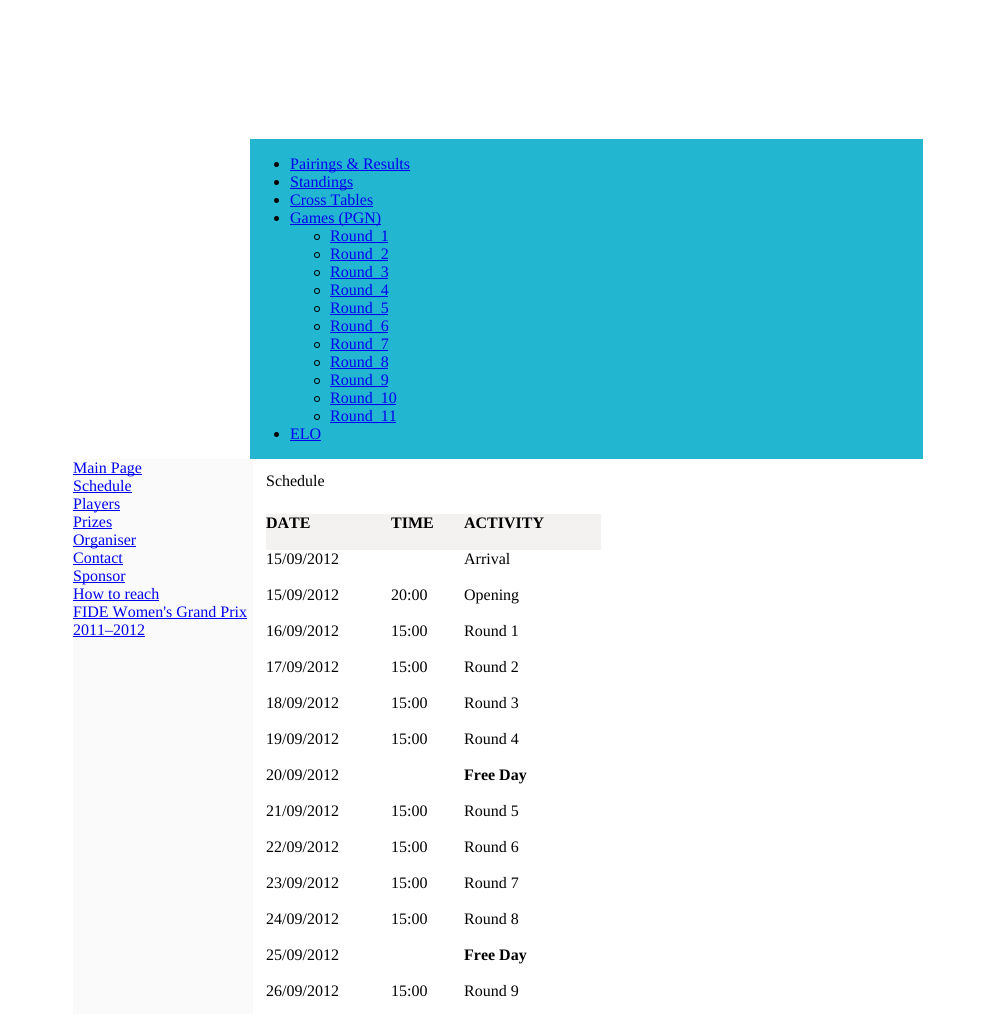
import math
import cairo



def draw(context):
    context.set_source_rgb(1, 1, 1)
    context.paint()
    context.set_source_rgb(34 / 255, 182 / 255, 208 / 255)
    context.rectangle(250, 139, 673, 320)
    context.fill()
    context.set_source_rgb(0, 0, 0)
    context.arc(276.5, 164.5, 2.5, 0, 2 * math.pi)
    context.fill()
    context.set_source_rgb(0, 0, 238 / 255)
    context.rectangle(290, 170, 120, 1)
    context.fill()
    context.set_source_rgb(0, 0, 0)
    context.arc(276.5, 182.5, 2.5, 0, 2 * math.pi)
    context.fill()
    context.set_source_rgb(0, 0, 238 / 255)
    context.rectangle(290, 188, 63, 1)
    context.fill()
    context.set_source_rgb(0, 0, 0)
    context.arc(276.5, 200.5, 2.5, 0, 2 * math.pi)
    context.fill()
    context.set_source_rgb(0, 0, 238 / 255)
    context.rectangle(290, 206, 83, 1)
    context.fill()
    context.set_source_rgb(0, 0, 0)
    context.arc(276.5, 218.5, 2.5, 0, 2 * math.pi)
    context.fill()
    context.set_source_rgb(0, 0, 238 / 255)
    context.rectangle(290, 224, 91, 1)
    context.fill()
    context.arc(317, 237, 2.5, 0, 2 * math.pi)
    context.set_source_rgb(0, 0, 0)
    context.set_line_width(1)
    context.stroke()
    context.set_source_rgb(0, 0, 238 / 255)
    context.rectangle(330, 242, 58, 1)
    context.fill()
    context.arc(317, 255, 2.5, 0, 2 * math.pi)
    context.set_source_rgb(0, 0, 0)
    context.stroke()
    context.set_source_rgb(0, 0, 238 / 255)
    context.rectangle(330, 260, 58, 1)
    context.fill()
    context.arc(317, 273, 2.5, 0, 2 * math.pi)
    context.set_source_rgb(0, 0, 0)
    context.stroke()
    context.set_source_rgb(0, 0, 238 / 255)
    context.rectangle(330, 278, 58, 1)
    context.fill()
    context.arc(317, 291, 2.5, 0, 2 * math.pi)
    context.set_source_rgb(0, 0, 0)
    context.stroke()
    context.set_source_rgb(0, 0, 238 / 255)
    context.rectangle(330, 296, 58, 1)
    context.fill()
    context.arc(317, 309, 2.5, 0, 2 * math.pi)
    context.set_source_rgb(0, 0, 0)
    context.stroke()
    context.set_source_rgb(0, 0, 238 / 255)
    context.rectangle(330, 314, 58, 1)
    context.fill()
    context.arc(317, 327, 2.5, 0, 2 * math.pi)
    context.set_source_rgb(0, 0, 0)
    context.stroke()
    context.set_source_rgb(0, 0, 238 / 255)
    context.rectangle(330, 332, 58, 1)
    context.fill()
    context.arc(317, 345, 2.5, 0, 2 * math.pi)
    context.set_source_rgb(0, 0, 0)
    context.stroke()
    context.set_source_rgb(0, 0, 238 / 255)
    context.rectangle(330, 350, 58, 1)
    context.fill()
    context.arc(317, 363, 2.5, 0, 2 * math.pi)
    context.set_source_rgb(0, 0, 0)
    context.stroke()
    context.set_source_rgb(0, 0, 238 / 255)
    context.rectangle(330, 368, 58, 1)
    context.fill()
    context.arc(317, 381, 2.5, 0, 2 * math.pi)
    context.set_source_rgb(0, 0, 0)
    context.stroke()
    context.set_source_rgb(0, 0, 238 / 255)
    context.rectangle(330, 386, 58, 1)
    context.fill()
    context.arc(317, 399, 2.5, 0, 2 * math.pi)
    context.set_source_rgb(0, 0, 0)
    context.stroke()
    context.set_source_rgb(0, 0, 238 / 255)
    context.rectangle(330, 404, 66, 1)
    context.fill()
    context.arc(317, 417, 2.5, 0, 2 * math.pi)
    context.set_source_rgb(0, 0, 0)
    context.stroke()
    context.set_source_rgb(0, 0, 238 / 255)
    context.rectangle(330, 422, 66, 1)
    context.fill()
    context.set_source_rgb(0, 0, 0)
    context.arc(276.5, 434.5, 2.5, 0, 2 * math.pi)
    context.fill()
    context.set_source_rgb(0, 0, 238 / 255)
    context.rectangle(290, 440, 31, 1)
    context.fill()
    context.set_source_rgb(250 / 255, 250 / 255, 250 / 255)
    context.rectangle(73, 459, 180, 555)
    context.fill()
    context.set_source_rgb(0, 0, 238 / 255)
    context.rectangle(73, 474, 69, 1)
    context.fill()
    context.rectangle(73, 492, 59, 1)
    context.fill()
    context.rectangle(73, 510, 47, 1)
    context.fill()
    context.rectangle(73, 528, 39, 1)
    context.fill()
    context.rectangle(73, 546, 63, 1)
    context.fill()
    context.rectangle(73, 564, 50, 1)
    context.fill()
    context.rectangle(73, 582, 52, 1)
    context.fill()
    context.rectangle(73, 600, 86, 1)
    context.fill()
    context.rectangle(73, 618, 174, 1)
    context.fill()
    context.rectangle(73, 636, 72, 1)
    context.fill()
    context.set_source_rgb(244 / 255, 241 / 255, 241 / 255)
    context.rectangle(266, 514, 335, 36)
    context.fill()
    context.select_font_face("Liberation Serif")
    context.set_font_size(16)
    context.set_source_rgb(0, 0, 238 / 255)
    context.move_to(290, 169)
    context.show_text("Pairings & Results")
    context.move_to(290, 187)
    context.show_text("Standings")
    context.move_to(290, 205)
    context.show_text("Cross Tables")
    context.move_to(290, 223)
    context.show_text("Games (PGN)")
    context.move_to(330, 241)
    context.show_text("Round_1")
    context.move_to(330, 259)
    context.show_text("Round_2")
    context.move_to(330, 277)
    context.show_text("Round_3")
    context.move_to(330, 295)
    context.show_text("Round_4")
    context.move_to(330, 313)
    context.show_text("Round_5")
    context.move_to(330, 331)
    context.show_text("Round_6")
    context.move_to(330, 349)
    context.show_text("Round_7")
    context.move_to(330, 367)
    context.show_text("Round_8")
    context.move_to(330, 385)
    context.show_text("Round_9")
    context.move_to(330, 403)
    context.show_text("Round_10")
    context.move_to(330, 421)
    context.show_text("Round_11")
    context.move_to(290, 439)
    context.show_text("ELO")
    context.move_to(73, 473)
    context.show_text("Main Page")
    context.move_to(73, 491)
    context.show_text("Schedule")
    context.move_to(73, 509)
    context.show_text("Players")
    context.move_to(73, 527)
    context.show_text("Prizes")
    context.move_to(73, 545)
    context.show_text("Organiser")
    context.move_to(73, 563)
    context.show_text("Contact")
    context.move_to(73, 581)
    context.show_text("Sponsor")
    context.move_to(73, 599)
    context.show_text("How to reach")
    context.move_to(73, 617)
    context.show_text("FIDE Women's Grand Prix")
    context.move_to(73, 635)
    context.show_text("2011–2012")
    context.set_source_rgb(0, 0, 0)
    context.move_to(266, 486)
    context.show_text("Schedule")
    context.select_font_face("Liberation Serif", cairo.FontSlant.NORMAL, cairo.FontWeight.BOLD)
    context.move_to(266, 528)
    context.show_text("DATE")
    context.move_to(391, 528)
    context.show_text("TIME")
    context.move_to(464, 528)
    context.show_text("ACTIVITY")
    context.select_font_face("Liberation Serif")
    context.move_to(266, 564)
    context.show_text("15/09/2012")
    context.move_to(464, 564)
    context.show_text("Arrival")
    context.move_to(266, 600)
    context.show_text("15/09/2012")
    context.move_to(391, 600)
    context.show_text("20:00")
    context.move_to(464, 600)
    context.show_text("Opening")
    context.move_to(266, 636)
    context.show_text("16/09/2012")
    context.move_to(391, 636)
    context.show_text("15:00")
    context.move_to(464, 636)
    context.show_text("Round 1")
    context.move_to(266, 672)
    context.show_text("17/09/2012")
    context.move_to(391, 672)
    context.show_text("15:00")
    context.move_to(464, 672)
    context.show_text("Round 2")
    context.move_to(266, 708)
    context.show_text("18/09/2012")
    context.move_to(391, 708)
    context.show_text("15:00")
    context.move_to(464, 708)
    context.show_text("Round 3")
    context.move_to(266, 744)
    context.show_text("19/09/2012")
    context.move_to(391, 744)
    context.show_text("15:00")
    context.move_to(464, 744)
    context.show_text("Round 4")
    context.move_to(266, 780)
    context.show_text("20/09/2012")
    context.select_font_face("Liberation Serif", cairo.FontSlant.NORMAL, cairo.FontWeight.BOLD)
    context.move_to(464, 780)
    context.show_text("Free Day")
    context.select_font_face("Liberation Serif")
    context.move_to(266, 816)
    context.show_text("21/09/2012")
    context.move_to(391, 816)
    context.show_text("15:00")
    context.move_to(464, 816)
    context.show_text("Round 5")
    context.move_to(266, 852)
    context.show_text("22/09/2012")
    context.move_to(391, 852)
    context.show_text("15:00")
    context.move_to(464, 852)
    context.show_text("Round 6")
    context.move_to(266, 888)
    context.show_text("23/09/2012")
    context.move_to(391, 888)
    context.show_text("15:00")
    context.move_to(464, 888)
    context.show_text("Round 7")
    context.move_to(266, 924)
    context.show_text("24/09/2012")
    context.move_to(391, 924)
    context.show_text("15:00")
    context.move_to(464, 924)
    context.show_text("Round 8")
    context.move_to(266, 960)
    context.show_text("25/09/2012")
    context.select_font_face("Liberation Serif", cairo.FontSlant.NORMAL, cairo.FontWeight.BOLD)
    context.move_to(464, 960)
    context.show_text("Free Day")
    context.select_font_face("Liberation Serif")
    context.move_to(266, 996)
    context.show_text("26/09/2012")
    context.move_to(391, 996)
    context.show_text("15:00")
    context.move_to(464, 996)
    context.show_text("Round 9")


surface = cairo.ImageSurface(cairo.Format.RGB24, 996, 1014)
context = cairo.Context(surface)
options = cairo.FontOptions()
options.set_hint_metrics(cairo.HintMetrics.OFF)
options.set_hint_style(cairo.HintStyle.NONE)
context.set_font_options(options)
context.set_miter_limit(4)
draw(context)
surface.write_to_png("out.png")
